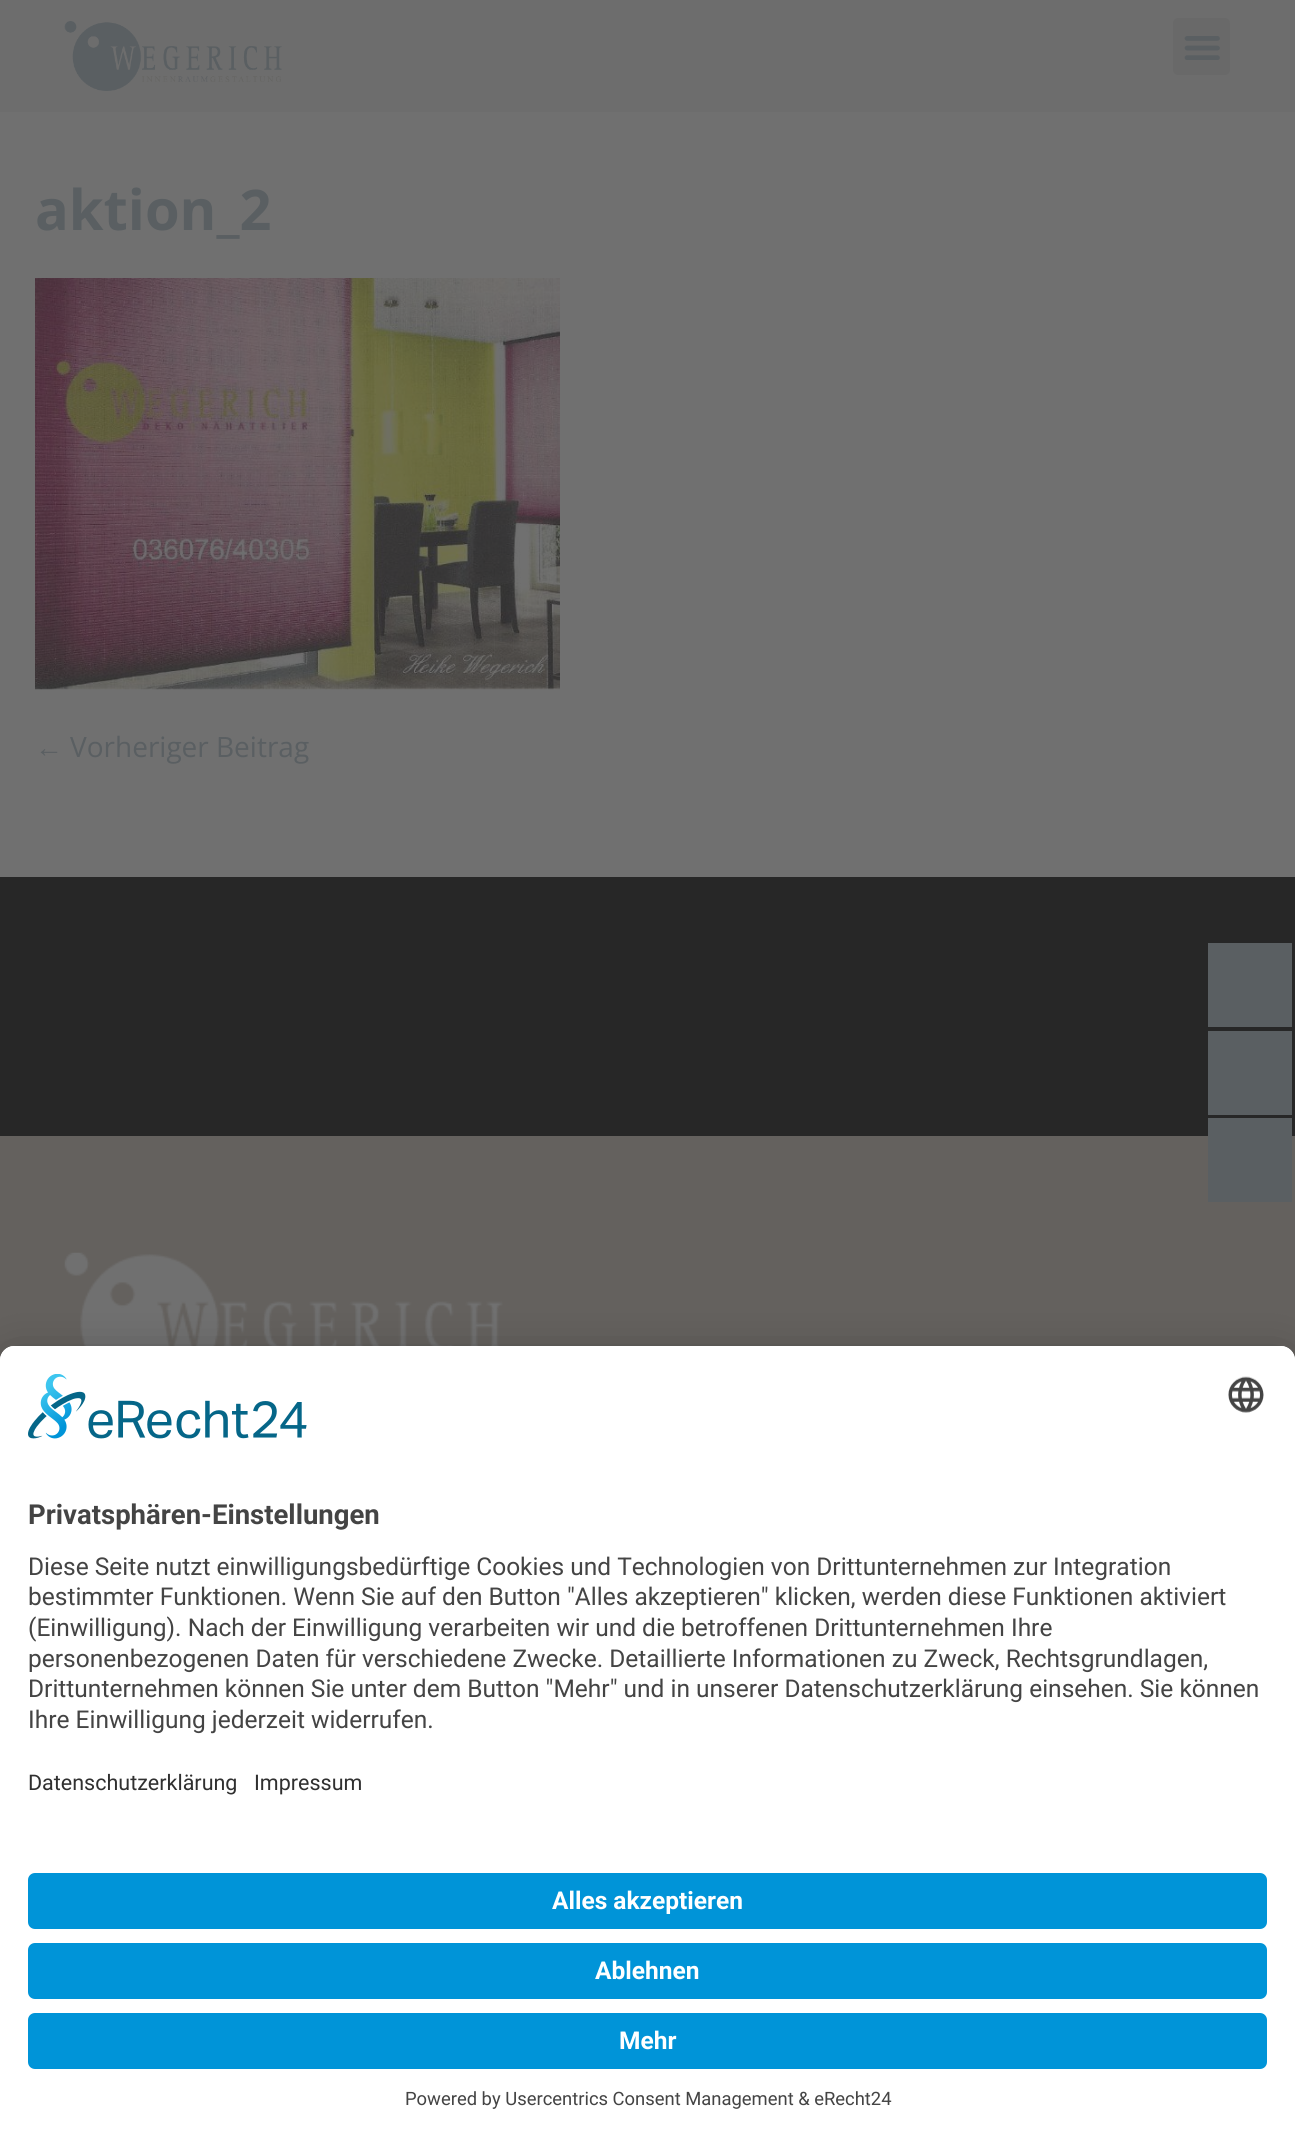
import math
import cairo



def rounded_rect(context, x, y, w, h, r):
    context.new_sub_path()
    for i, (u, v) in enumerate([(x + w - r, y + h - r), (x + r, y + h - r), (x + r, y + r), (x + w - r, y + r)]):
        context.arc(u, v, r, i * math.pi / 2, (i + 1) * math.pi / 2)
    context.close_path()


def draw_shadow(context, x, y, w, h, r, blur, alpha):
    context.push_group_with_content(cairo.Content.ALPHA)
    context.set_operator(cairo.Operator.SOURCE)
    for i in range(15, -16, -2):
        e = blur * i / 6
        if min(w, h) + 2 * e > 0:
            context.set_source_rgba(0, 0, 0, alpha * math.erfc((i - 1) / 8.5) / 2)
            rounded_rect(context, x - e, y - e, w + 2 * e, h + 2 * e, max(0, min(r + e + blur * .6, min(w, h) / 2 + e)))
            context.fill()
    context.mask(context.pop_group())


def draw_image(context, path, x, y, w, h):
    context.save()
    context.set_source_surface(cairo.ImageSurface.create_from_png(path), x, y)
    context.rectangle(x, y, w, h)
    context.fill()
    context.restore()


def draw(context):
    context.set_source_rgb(112 / 255, 112 / 255, 112 / 255)
    context.paint()
    context.set_source_rgb(109 / 255, 109 / 255, 109 / 255)
    context.rectangle(0, 0, 1295, 112)
    context.fill()
    draw_image(context, "images/1.png", 64, 21, 218, 70)
    context.set_source_rgb(105 / 255, 105 / 255, 105 / 255)
    rounded_rect(context, 1173, 18, 57, 57, 5)
    context.fill()
    draw_image(context, "images/2.png", 1184, 36, 36, 24)
    draw_image(context, "images/3.png", 35, 278, 525, 412)
    context.set_source_rgb(39 / 255, 39 / 255, 39 / 255)
    context.rectangle(0, 877, 1295, 259)
    context.fill()
    context.set_source_rgb(100 / 255, 97 / 255, 94 / 255)
    context.rectangle(0, 1136, 1295, 224)
    context.fill()
    draw_image(context, "images/4.png", 64, 1252, 439, 94)
    context.set_source_rgb(90 / 255, 95 / 255, 98 / 255)
    context.rectangle(1208, 943, 84, 84)
    context.fill()
    context.rectangle(1208, 1031, 84, 84)
    context.fill()
    context.rectangle(1208, 1118, 84, 84)
    context.fill()
    context.set_source_rgb(0, 0, 0)
    draw_shadow(context, 0, 1381, 1295, 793, 14, 24.5, 0.3)
    draw_shadow(context, 0, 1355, 1295, 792, 14, 23, 0.22)
    context.set_source_rgb(1, 1, 1)
    context.new_path()
    context.move_to(14, 1346)
    context.line_to(1281, 1346)
    context.curve_to(1288.5, 1346, 1295, 1352.5, 1295, 1360)
    context.line_to(1295, 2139)
    context.line_to(0, 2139)
    context.line_to(0, 1360)
    context.curve_to(0, 1352.5, 6.5, 1346, 14, 1346)
    context.close_path()
    context.fill()
    context.new_path()
    context.move_to(14, 1346)
    context.line_to(1281, 1346)
    context.curve_to(1288.5, 1346, 1295, 1352.5, 1295, 1360)
    context.line_to(1295, 1852)
    context.line_to(0, 1852)
    context.line_to(0, 1360)
    context.curve_to(0, 1352.5, 6.5, 1346, 14, 1346)
    context.close_path()
    context.fill()
    draw_image(context, "images/5.png", 28, 1374, 279, 65)
    draw_image(context, "images/6.png", 1228, 1376, 36, 37)
    context.set_source_rgb(0, 148 / 255, 216 / 255)
    rounded_rect(context, 28, 1873, 1239, 56, 7)
    context.fill()
    rounded_rect(context, 28, 1943, 1239, 56, 7)
    context.fill()
    rounded_rect(context, 28, 2013, 1239, 56, 7)
    context.fill()
    context.select_font_face("Open Sans", cairo.FontSlant.NORMAL, cairo.FontWeight.BOLD)
    context.set_font_size(56)
    context.set_source_rgb(90 / 255, 95 / 255, 98 / 255)
    context.move_to(35, 230)
    context.show_text("aktion_2")
    context.select_font_face("Liberation Serif")
    context.set_font_size(28)
    context.move_to(35, 757)
    context.show_text("←")
    context.select_font_face("Open Sans")
    context.move_to(70, 757)
    context.show_text("Vorheriger Beitrag")
    context.select_font_face("Roboto", cairo.FontSlant.NORMAL, cairo.FontWeight.BOLD)
    context.set_font_size(27.5)
    context.set_source_rgb(68 / 255, 68 / 255, 68 / 255)
    context.move_to(28, 1524)
    context.show_text("Privatsphären-Einstellungen")
    context.select_font_face("Roboto")
    context.set_font_size(24.5)
    context.move_to(28, 1575)
    context.show_text("Diese Seite nutzt einwilligungsbedürftige Cookies und Technologien von Drittunternehmen zur Integration")
    context.move_to(28, 1605)
    context.show_text("bestimmter Funktionen. Wenn Sie auf den Button \"Alles akzeptieren\" klicken, werden diese Funktionen aktiviert")
    context.move_to(28, 1636)
    context.show_text("(Einwilligung). Nach der Einwilligung verarbeiten wir und die betroffenen Drittunternehmen Ihre")
    context.move_to(28, 1667)
    context.show_text("personenbezogenen Daten für verschiedene Zwecke. Detaillierte Informationen zu Zweck, Rechtsgrundlagen,")
    context.move_to(28, 1697)
    context.show_text("Drittunternehmen können Sie unter dem Button \"Mehr\" und in unserer Datenschutzerklärung einsehen. Sie können")
    context.move_to(28, 1728)
    context.show_text("Ihre Einwilligung jederzeit widerrufen.")
    context.set_font_size(21.5)
    context.set_source_rgb(48 / 255, 48 / 255, 48 / 255)
    context.move_to(28, 1790)
    context.show_text("Datenschutzerklärung")
    context.move_to(254, 1790)
    context.show_text("Impressum")
    context.select_font_face("Roboto", cairo.FontSlant.NORMAL, cairo.FontWeight.BOLD)
    context.set_font_size(24.5)
    context.set_source_rgb(1, 1, 1)
    context.move_to(552, 1909)
    context.show_text("Alles akzeptieren")
    context.move_to(595, 1979)
    context.show_text("Ablehnen")
    context.move_to(619, 2049)
    context.show_text("Mehr")
    context.select_font_face("Roboto")
    context.set_font_size(18.4)
    context.set_source_rgb(68 / 255, 68 / 255, 68 / 255)
    context.move_to(405, 2105)
    context.show_text("Powered by Usercentrics Consent Management & eRecht24")


surface = cairo.ImageSurface(cairo.Format.RGB24, 1295, 2137)
context = cairo.Context(surface)
options = cairo.FontOptions()
options.set_hint_metrics(cairo.HintMetrics.OFF)
options.set_hint_style(cairo.HintStyle.NONE)
context.set_font_options(options)
context.set_miter_limit(4)
draw(context)
surface.write_to_png("out.png")
